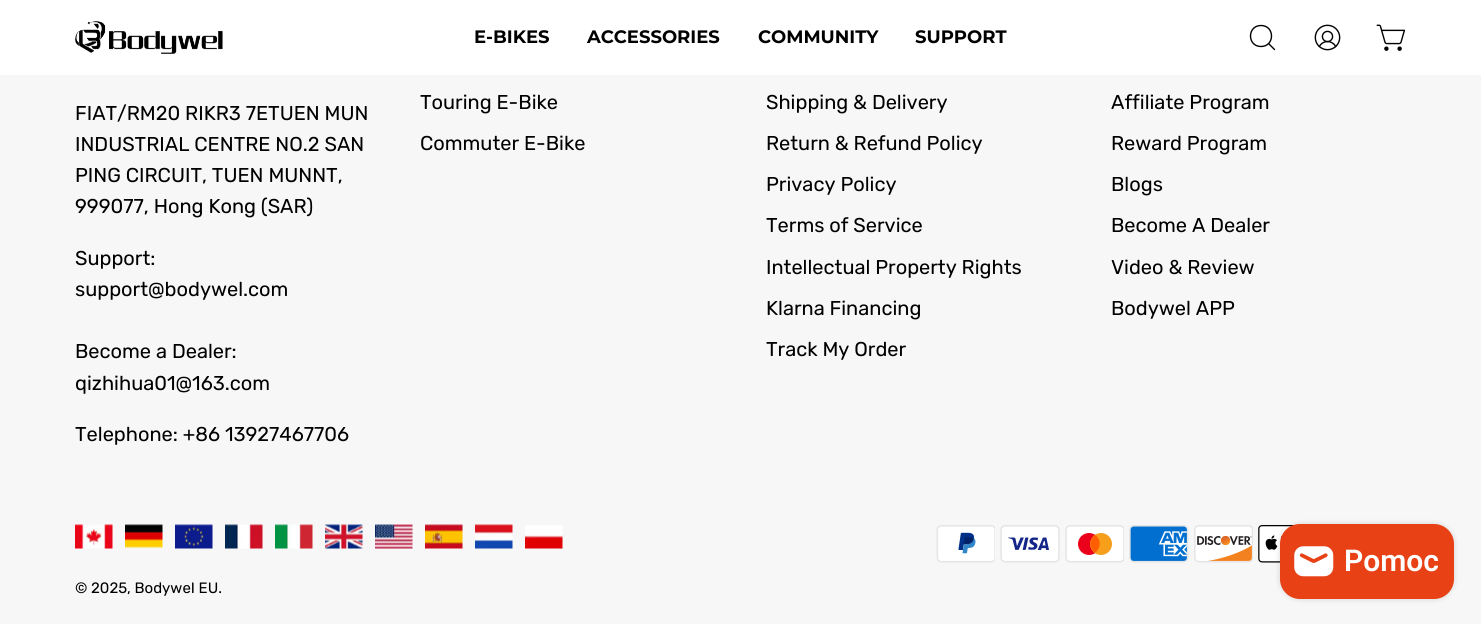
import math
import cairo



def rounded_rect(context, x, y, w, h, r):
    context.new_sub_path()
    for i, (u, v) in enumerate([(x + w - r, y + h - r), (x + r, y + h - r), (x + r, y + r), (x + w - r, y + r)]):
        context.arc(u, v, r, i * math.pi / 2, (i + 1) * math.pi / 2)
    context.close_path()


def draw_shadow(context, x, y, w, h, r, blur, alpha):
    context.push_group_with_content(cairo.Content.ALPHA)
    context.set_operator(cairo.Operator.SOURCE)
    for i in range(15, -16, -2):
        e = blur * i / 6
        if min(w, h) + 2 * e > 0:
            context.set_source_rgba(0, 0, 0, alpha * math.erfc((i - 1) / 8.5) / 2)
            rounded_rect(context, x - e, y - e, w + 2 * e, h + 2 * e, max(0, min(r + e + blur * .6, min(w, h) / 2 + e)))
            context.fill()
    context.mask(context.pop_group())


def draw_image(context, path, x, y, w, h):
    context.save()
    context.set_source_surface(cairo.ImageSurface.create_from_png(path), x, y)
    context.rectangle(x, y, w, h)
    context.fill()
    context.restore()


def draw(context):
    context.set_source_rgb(247 / 255, 247 / 255, 247 / 255)
    context.paint()
    context.set_source_rgb(1, 1, 1)
    context.rectangle(0, 0, 1481, 75)
    context.fill()
    draw_image(context, "images/1.png", 75, 21, 148, 33)
    context.new_path()
    context.move_to(1261, 46.5)
    context.curve_to(1275, 46.5, 1275, 25.5, 1261, 25.5)
    context.curve_to(1247, 25.5, 1247, 46.5, 1261, 46.5)
    context.close_path()
    context.move_to(1268.5, 43.5)
    context.line_to(1274.5, 49.5)
    context.set_source_rgb(0, 0, 0)
    context.set_line_width(1.4)
    context.set_line_cap(cairo.LineCap.ROUND)
    context.set_line_join(cairo.LineJoin.ROUND)
    context.stroke()
    draw_image(context, "images/2.png", 1314, 24, 27, 27)
    draw_image(context, "images/3.png", 1376, 24, 30, 27)
    draw_image(context, "images/4.png", 936, 525, 59, 38)
    draw_image(context, "images/5.png", 1000, 525, 60, 38)
    draw_image(context, "images/6.png", 1065, 525, 59, 38)
    draw_image(context, "images/7.png", 1129, 525, 60, 38)
    draw_image(context, "images/8.png", 1194, 525, 59, 38)
    draw_image(context, "images/9.png", 1258, 525, 36, 38)
    draw_image(context, "images/10.png", 75, 524, 38, 25)
    draw_image(context, "images/11.png", 125, 524, 38, 24)
    draw_image(context, "images/12.png", 175, 524, 38, 25)
    draw_image(context, "images/13.png", 225, 524, 38, 25)
    draw_image(context, "images/14.png", 275, 524, 38, 25)
    draw_image(context, "images/15.png", 325, 524, 38, 25)
    draw_image(context, "images/16.png", 375, 524, 38, 25)
    draw_image(context, "images/17.png", 425, 524, 38, 25)
    draw_image(context, "images/18.png", 475, 524, 38, 25)
    draw_image(context, "images/19.png", 525, 525, 38, 24)
    context.set_source_rgb(0, 0, 0)
    draw_shadow(context, 1280, 524, 174, 75, 20, 3, 0.15)
    context.set_source_rgb(232 / 255, 65 / 255, 22 / 255)
    rounded_rect(context, 1280, 524, 174, 75, 20)
    context.fill()
    draw_image(context, "images/20.png", 1294, 546, 40, 31)
    context.select_font_face("Montserrat", cairo.FontSlant.NORMAL, cairo.FontWeight.BOLD)
    context.set_font_size(18)
    context.set_source_rgb(0, 0, 0)
    context.move_to(474, 43)
    context.show_text("E-BIKES")
    context.move_to(587, 43)
    context.show_text("ACCESSORIES")
    context.move_to(758, 43)
    context.show_text("COMMUNITY")
    context.move_to(915, 43)
    context.show_text("SUPPORT")
    context.select_font_face("Rubik")
    context.set_font_size(20)
    context.move_to(75, 120)
    context.show_text("FIAT/RM20 RIKR3 7ETUEN MUN")
    context.move_to(75, 151)
    context.show_text("INDUSTRIAL CENTRE NO.2 SAN")
    context.move_to(75, 182)
    context.show_text("PING CIRCUIT, TUEN MUNNT,")
    context.move_to(75, 213)
    context.show_text("999077, Hong Kong (SAR)")
    context.move_to(75, 265)
    context.show_text("Support:")
    context.move_to(75, 296)
    context.show_text("support@bodywel.com")
    context.move_to(75, 358)
    context.show_text("Become a Dealer:")
    context.move_to(75, 390)
    context.show_text("qizhihua01@163.com")
    context.move_to(75, 441)
    context.show_text("Telephone: +86 13927467706")
    context.move_to(420, 109)
    context.show_text("Touring E-Bike")
    context.move_to(420, 150)
    context.show_text("Commuter E-Bike")
    context.move_to(766, 109)
    context.show_text("Shipping & Delivery")
    context.move_to(766, 150)
    context.show_text("Return & Refund Policy")
    context.move_to(766, 191)
    context.show_text("Privacy Policy")
    context.move_to(766, 232)
    context.show_text("Terms of Service")
    context.move_to(766, 274)
    context.show_text("Intellectual Property Rights")
    context.move_to(766, 315)
    context.show_text("Klarna Financing")
    context.move_to(766, 356)
    context.show_text("Track My Order")
    context.move_to(1111, 109)
    context.show_text("Affiliate Program")
    context.move_to(1111, 150)
    context.show_text("Reward Program")
    context.move_to(1111, 191)
    context.show_text("Blogs")
    context.move_to(1111, 232)
    context.show_text("Become A Dealer")
    context.move_to(1111, 274)
    context.show_text("Video & Review")
    context.move_to(1111, 315)
    context.show_text("Bodywel APP")
    context.set_font_size(15)
    context.move_to(75, 593)
    context.show_text("© 2025, BodyweI EU.")
    context.select_font_face("Roboto SemiBold")
    context.set_font_size(30)
    context.set_source_rgb(1, 1, 1)
    context.move_to(1344, 571)
    context.show_text("Pomoc")


surface = cairo.ImageSurface(cairo.Format.RGB24, 1481, 624)
context = cairo.Context(surface)
options = cairo.FontOptions()
options.set_hint_metrics(cairo.HintMetrics.OFF)
options.set_hint_style(cairo.HintStyle.NONE)
context.set_font_options(options)
context.set_miter_limit(4)
draw(context)
surface.write_to_png("out.png")
